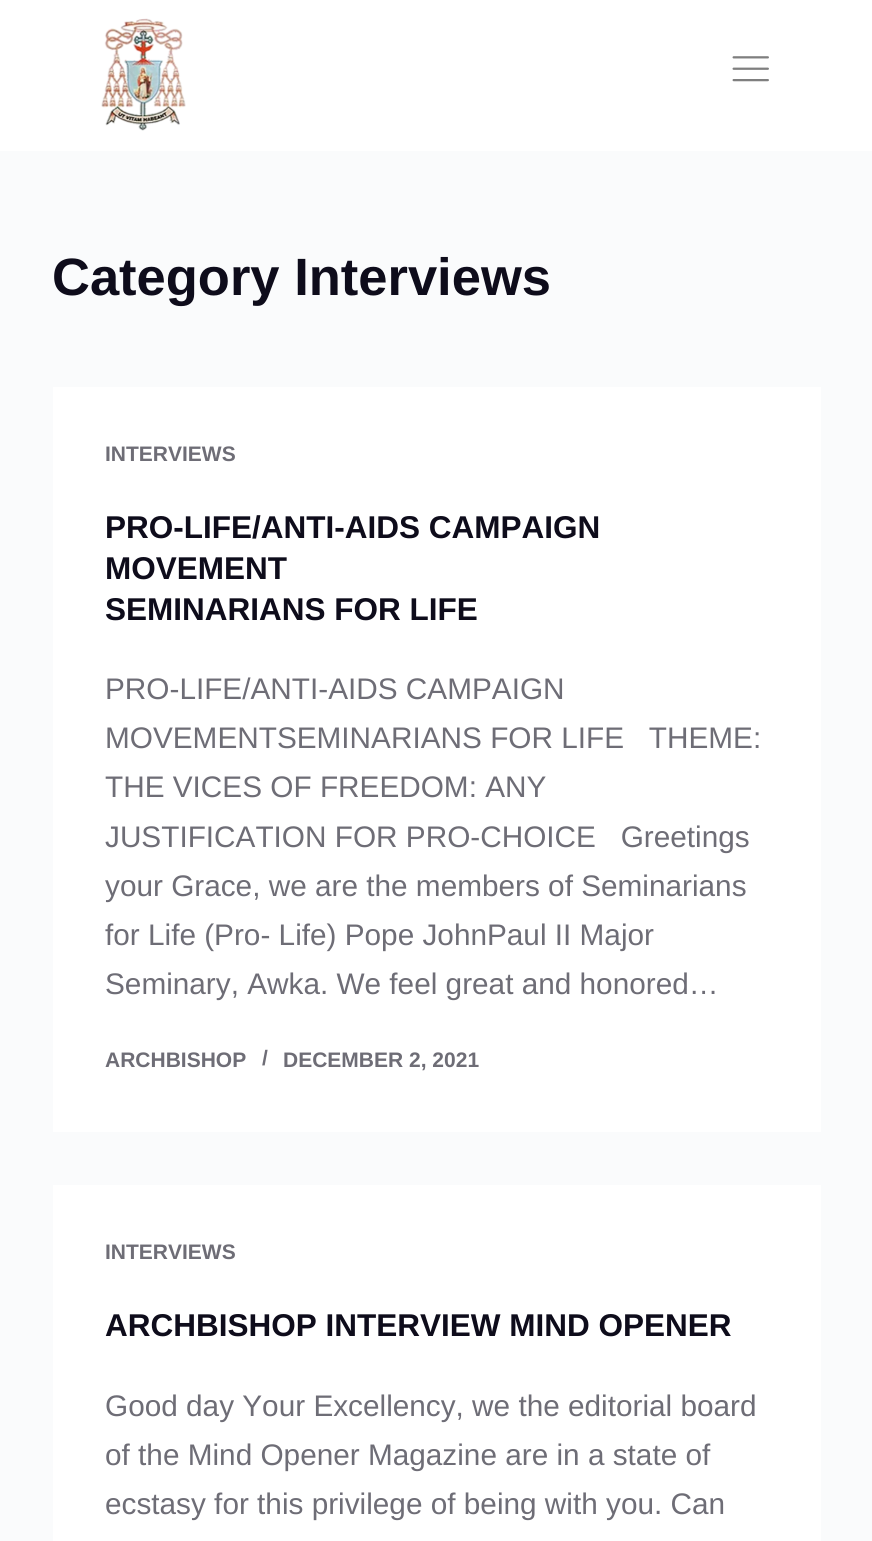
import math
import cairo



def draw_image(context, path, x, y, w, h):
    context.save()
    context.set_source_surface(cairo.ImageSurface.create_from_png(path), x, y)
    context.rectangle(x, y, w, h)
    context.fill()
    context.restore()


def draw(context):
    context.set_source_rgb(250 / 255, 251 / 255, 252 / 255)
    context.paint()
    context.set_source_rgb(1, 1, 1)
    context.rectangle(0, 0, 872, 151)
    context.fill()
    draw_image(context, "images/1.png", 101, 18, 85, 113)
    draw_image(context, "images/2.png", 732, 56, 37, 26)
    context.rectangle(53, 387, 768, 745)
    context.fill()
    context.rectangle(53, 1185, 768, 356)
    context.fill()
    context.select_font_face("Liberation Sans", cairo.FontSlant.NORMAL, cairo.FontWeight.BOLD)
    context.set_font_size(52.5)
    context.set_source_rgb(14 / 255, 12 / 255, 27 / 255)
    context.move_to(52, 295)
    context.show_text("Category Interviews")
    context.set_font_size(21)
    context.set_source_rgb(110 / 255, 109 / 255, 118 / 255)
    context.move_to(105, 461)
    context.show_text("INTERVIEWS")
    context.set_font_size(31.5)
    context.set_source_rgb(14 / 255, 12 / 255, 27 / 255)
    context.move_to(105, 538)
    context.show_text("PRO-LIFE/ANTI-AIDS CAMPAIGN")
    context.move_to(105, 579)
    context.show_text("MOVEMENT")
    context.move_to(105, 620)
    context.show_text("SEMINARIANS FOR LIFE")
    context.select_font_face("Liberation Sans")
    context.set_font_size(29.75)
    context.set_source_rgb(110 / 255, 109 / 255, 118 / 255)
    context.move_to(105, 699)
    context.show_text("PRO-LIFE/ANTI-AIDS CAMPAIGN")
    context.move_to(105, 748)
    context.show_text("MOVEMENTSEMINARIANS FOR LIFE   THEME:")
    context.move_to(105, 797)
    context.show_text("THE VICES OF FREEDOM: ANY")
    context.move_to(105, 847)
    context.show_text("JUSTIFICATION FOR PRO-CHOICE   Greetings")
    context.move_to(105, 896)
    context.show_text("your Grace, we are the members of Seminarians")
    context.move_to(105, 945)
    context.show_text("for Life (Pro- Life) Pope JohnPaul II Major")
    context.move_to(105, 994)
    context.show_text("Seminary, Awka. We feel great and honored…")
    context.select_font_face("Liberation Sans", cairo.FontSlant.NORMAL, cairo.FontWeight.BOLD)
    context.set_font_size(21)
    context.move_to(105, 1067)
    context.show_text("ARCHBISHOP")
    context.move_to(262, 1065)
    context.show_text("/")
    context.move_to(283, 1067)
    context.show_text("DECEMBER 2, 2021")
    context.move_to(105, 1259)
    context.show_text("INTERVIEWS")
    context.set_font_size(31.5)
    context.set_source_rgb(14 / 255, 12 / 255, 27 / 255)
    context.move_to(105, 1336)
    context.show_text("ARCHBISHOP INTERVIEW MIND OPENER")
    context.select_font_face("Liberation Sans")
    context.set_font_size(29.75)
    context.set_source_rgb(110 / 255, 109 / 255, 118 / 255)
    context.move_to(105, 1416)
    context.show_text("Good day Your Excellency, we the editorial board")
    context.move_to(105, 1465)
    context.show_text("of the Mind Opener Magazine are in a state of")
    context.move_to(105, 1514)
    context.show_text("ecstasy for this privilege of being with you. Can")


surface = cairo.ImageSurface(cairo.Format.RGB24, 872, 1541)
context = cairo.Context(surface)
options = cairo.FontOptions()
options.set_hint_metrics(cairo.HintMetrics.OFF)
options.set_hint_style(cairo.HintStyle.NONE)
context.set_font_options(options)
context.set_miter_limit(4)
draw(context)
surface.write_to_png("out.png")
